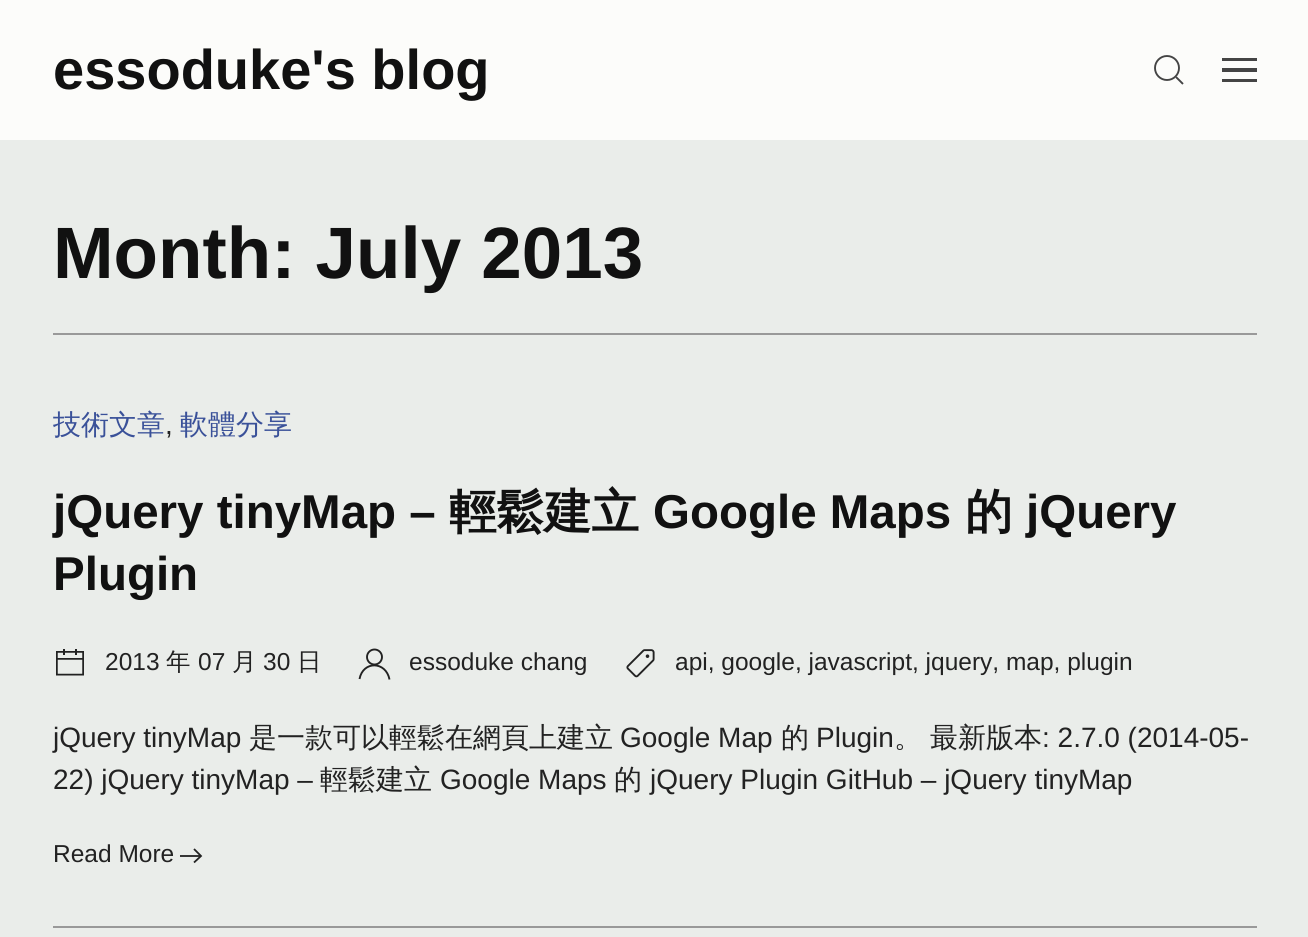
import math
import cairo



def draw_image(context, path, x, y, w, h):
    context.save()
    context.set_source_surface(cairo.ImageSurface.create_from_png(path), x, y)
    context.rectangle(x, y, w, h)
    context.fill()
    context.restore()


def draw(context):
    context.set_source_rgb(252 / 255, 252 / 255, 250 / 255)
    context.paint()
    context.arc(1167, 68, 12, 0, 2 * math.pi)
    context.set_source_rgb(68 / 255, 68 / 255, 68 / 255)
    context.set_line_width(1.9)
    context.stroke()
    context.new_path()
    context.move_to(1176, 77)
    context.line_to(1183, 84)
    context.close_path()
    context.stroke()
    context.rectangle(1222, 58, 35, 3)
    context.fill()
    context.rectangle(1222, 68, 35, 4)
    context.fill()
    context.rectangle(1222, 79, 35, 3)
    context.fill()
    context.set_source_rgb(234 / 255, 237 / 255, 234 / 255)
    context.rectangle(0, 140, 1308, 797)
    context.fill()
    context.set_source_rgb(153 / 255, 153 / 255, 153 / 255)
    context.rectangle(53, 333, 1204, 2)
    context.fill()
    draw_image(context, "images/1.png", 56, 649, 28, 27)
    context.arc(374.5, 657, 7.5, 0, 2 * math.pi)
    context.set_source_rgb(34 / 255, 34 / 255, 34 / 255)
    context.stroke()
    context.new_path()
    context.move_to(359.5, 679)
    context.curve_to(363, 660.5, 386, 661, 389.5, 679.5)
    context.stroke()
    draw_image(context, "images/2.png", 626, 649, 29, 29)
    context.set_source_rgb(54 / 255, 54 / 255, 54 / 255)
    context.rectangle(180, 855, 21, 2)
    context.fill()
    context.new_path()
    context.move_to(194, 862.5)
    context.line_to(201, 856)
    context.line_to(194, 849)
    context.set_source_rgb(34 / 255, 34 / 255, 34 / 255)
    context.set_line_width(1.8)
    context.stroke()
    context.set_source_rgb(153 / 255, 153 / 255, 153 / 255)
    context.rectangle(53, 926, 1204, 2)
    context.fill()
    context.select_font_face("Liberation Sans", cairo.FontSlant.NORMAL, cairo.FontWeight.BOLD)
    context.set_font_size(56)
    context.set_source_rgb(17 / 255, 17 / 255, 17 / 255)
    context.move_to(53, 89)
    context.show_text("essoduke's blog")
    context.set_font_size(72.75)
    context.move_to(53, 278)
    context.show_text("Month: July 2013")
    context.select_font_face("WenQuanYi Zen Hei Medium")
    context.set_font_size(28)
    context.set_source_rgb(58 / 255, 81 / 255, 153 / 255)
    context.move_to(53, 434)
    context.show_text("技術文章")
    context.select_font_face("Liberation Sans")
    context.set_source_rgb(34 / 255, 34 / 255, 34 / 255)
    context.move_to(165, 434)
    context.show_text(",")
    context.select_font_face("WenQuanYi Zen Hei Medium")
    context.set_source_rgb(58 / 255, 81 / 255, 153 / 255)
    context.move_to(180, 434)
    context.show_text("軟體分享")
    context.select_font_face("Liberation Sans", cairo.FontSlant.NORMAL, cairo.FontWeight.BOLD)
    context.set_font_size(47.5)
    context.set_source_rgb(17 / 255, 17 / 255, 17 / 255)
    context.move_to(53, 528)
    context.show_text("jQuery tinyMap –")
    context.select_font_face("WenQuanYi Zen Hei", cairo.FontSlant.NORMAL, cairo.FontWeight.BOLD)
    context.move_to(449, 528)
    context.show_text("輕鬆建立")
    context.select_font_face("Liberation Sans", cairo.FontSlant.NORMAL, cairo.FontWeight.BOLD)
    context.move_to(653, 528)
    context.show_text("Google Maps")
    context.select_font_face("WenQuanYi Zen Hei", cairo.FontSlant.NORMAL, cairo.FontWeight.BOLD)
    context.move_to(965, 528)
    context.show_text("的")
    context.select_font_face("Liberation Sans", cairo.FontSlant.NORMAL, cairo.FontWeight.BOLD)
    context.move_to(1026, 528)
    context.show_text("jQuery")
    context.move_to(53, 590)
    context.show_text("Plugin")
    context.select_font_face("Liberation Sans")
    context.set_font_size(24.5)
    context.set_source_rgb(34 / 255, 34 / 255, 34 / 255)
    context.move_to(105, 670)
    context.show_text("2013")
    context.select_font_face("WenQuanYi Zen Hei Medium")
    context.move_to(166, 670)
    context.show_text("年")
    context.select_font_face("Liberation Sans")
    context.move_to(198, 670)
    context.show_text("07")
    context.select_font_face("WenQuanYi Zen Hei Medium")
    context.move_to(232, 670)
    context.show_text("月")
    context.select_font_face("Liberation Sans")
    context.move_to(263, 670)
    context.show_text("30")
    context.select_font_face("WenQuanYi Zen Hei Medium")
    context.move_to(297, 670)
    context.show_text("日")
    context.select_font_face("Liberation Sans")
    context.move_to(409, 670)
    context.show_text("essoduke chang")
    context.move_to(675, 670)
    context.show_text("api, google, javascript, jquery, map, plugin")
    context.set_font_size(28)
    context.move_to(53, 747)
    context.show_text("jQuery tinyMap")
    context.select_font_face("WenQuanYi Zen Hei Medium")
    context.move_to(249, 747)
    context.show_text("是一款可以輕鬆在網頁上建立")
    context.select_font_face("Liberation Sans")
    context.move_to(620, 747)
    context.show_text("Google Map")
    context.select_font_face("WenQuanYi Zen Hei Medium")
    context.move_to(781, 747)
    context.show_text("的")
    context.select_font_face("Liberation Sans")
    context.move_to(816, 747)
    context.show_text("Plugin")
    context.select_font_face("WenQuanYi Zen Hei Medium")
    context.move_to(894, 747)
    context.show_text("。")
    context.move_to(930, 747)
    context.show_text("最新版本")
    context.select_font_face("Liberation Sans")
    context.move_to(1042, 747)
    context.show_text(": 2.7.0 (2014-05-")
    context.move_to(53, 789)
    context.show_text("22) jQuery tinyMap –")
    context.select_font_face("WenQuanYi Zen Hei Medium")
    context.move_to(320, 789)
    context.show_text("輕鬆建立")
    context.select_font_face("Liberation Sans")
    context.move_to(440, 789)
    context.show_text("Google Maps")
    context.select_font_face("WenQuanYi Zen Hei Medium")
    context.move_to(614, 789)
    context.show_text("的")
    context.select_font_face("Liberation Sans")
    context.move_to(650, 789)
    context.show_text("jQuery Plugin GitHub – jQuery tinyMap")
    context.set_font_size(24.5)
    context.move_to(53, 862)
    context.show_text("Read More")


surface = cairo.ImageSurface(cairo.Format.RGB24, 1308, 937)
context = cairo.Context(surface)
options = cairo.FontOptions()
options.set_hint_metrics(cairo.HintMetrics.OFF)
options.set_hint_style(cairo.HintStyle.NONE)
context.set_font_options(options)
context.set_miter_limit(4)
draw(context)
surface.write_to_png("out.png")
